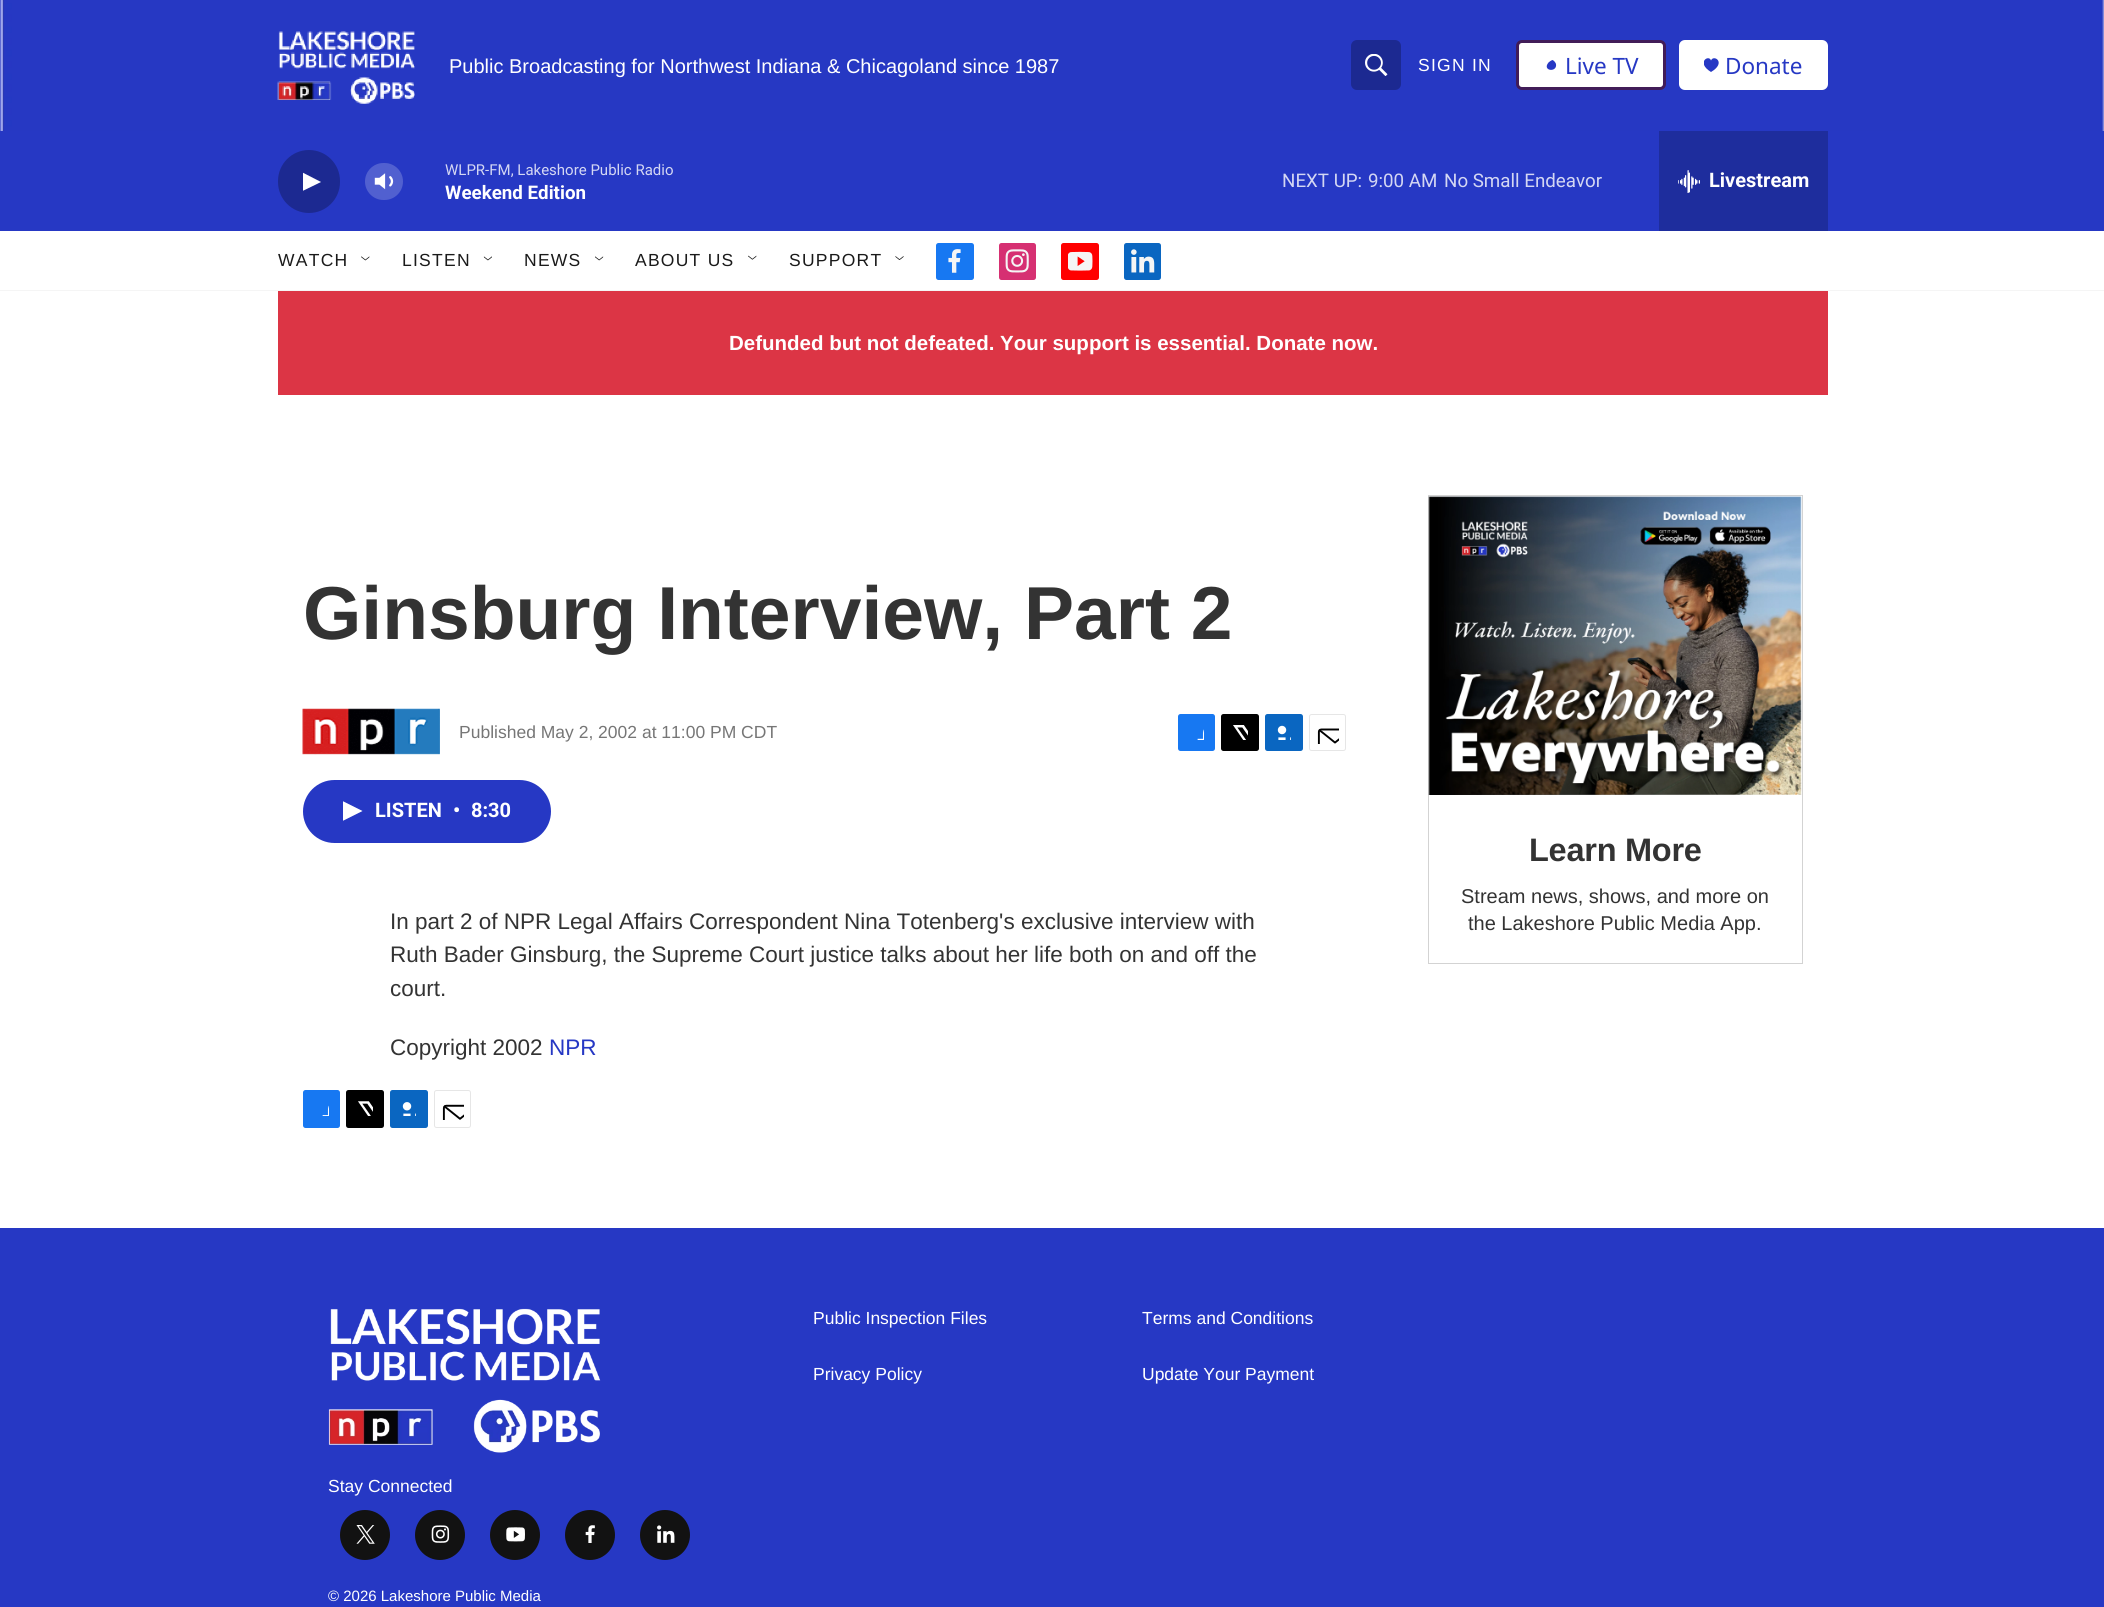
import math
import cairo



def draw_spaced(context, x, y, s, letter, word):
    context.move_to(x, y)
    for ch in s:
        context.show_text(ch)
        context.rel_move_to(letter + word * (ch == ' '), 0)


def rounded_rect(context, x, y, w, h, r):
    context.new_sub_path()
    for i, (u, v) in enumerate([(x + w - r, y + h - r), (x + r, y + h - r), (x + r, y + r), (x + w - r, y + r)]):
        context.arc(u, v, r, i * math.pi / 2, (i + 1) * math.pi / 2)
    context.close_path()


def draw_image(context, path, x, y, w, h):
    context.save()
    context.set_source_surface(cairo.ImageSurface.create_from_png(path), x, y)
    context.rectangle(x, y, w, h)
    context.fill()
    context.restore()


def draw(context):
    context.set_source_rgb(1, 1, 1)
    context.paint()
    context.set_source_rgb(38 / 255, 56 / 255, 196 / 255)
    context.rectangle(0, 0, 2104, 231)
    context.fill()
    context.set_source_rgb(245 / 255, 245 / 255, 245 / 255)
    context.rectangle(0, 290, 2104, 1)
    context.fill()
    draw_image(context, "images/1.png", 0, 0, 2104, 131)
    draw_image(context, "images/2.png", 277, 31, 138, 73)
    context.set_source_rgb(28 / 255, 41 / 255, 145 / 255)
    rounded_rect(context, 1351, 40, 50, 50, 6)
    context.fill()
    draw_image(context, "images/3.png", 1365, 54, 23, 22)
    context.set_source_rgb(1, 1, 1)
    rounded_rect(context, 1517.5, 41.5, 147, 47, 4.5)
    context.fill_preserve()
    context.set_source_rgb(65 / 255, 28 / 255, 88 / 255)
    context.set_line_width(3)
    context.stroke()
    context.set_source_rgb(38 / 255, 56 / 255, 196 / 255)
    context.new_path()
    context.move_to(1552.5, 60)
    context.curve_to(1554, 60.5, 1555.5, 62.5, 1556, 64)
    context.curve_to(1557.5, 73, 1541.5, 71, 1548.5, 62.5)
    context.curve_to(1549.5, 61.5, 1551, 60.5, 1552.5, 60)
    context.close_path()
    context.fill()
    context.set_source_rgb(1, 1, 1)
    rounded_rect(context, 1679, 40, 149, 50, 6)
    context.fill()
    context.save()
    context.rectangle(1704, 58, 15, 15)
    context.clip()
    context.set_source_rgb(38 / 255, 56 / 255, 196 / 255)
    context.new_path()
    context.move_to(1711, 60.5)
    context.curve_to(1709, 54, 1695.5, 62.5, 1711, 72)
    context.curve_to(1727, 62.5, 1713.5, 54, 1711, 60.5)
    context.close_path()
    context.fill()
    context.restore()
    context.set_source_rgb(28 / 255, 41 / 255, 145 / 255)
    rounded_rect(context, 278, 150, 62, 63, 31)
    context.fill()
    context.save()
    context.rectangle(303, 170, 18, 24)
    context.clip()
    context.set_source_rgb(1, 1, 1)
    context.new_path()
    context.move_to(302.5, 172.5)
    context.line_to(321, 182)
    context.line_to(302.5, 191)
    context.close_path()
    context.fill()
    context.restore()
    draw_image(context, "images/4.png", 374, 173, 20, 17)
    context.set_source_rgba(1, 1, 1, 0.2)
    rounded_rect(context, 365, 163, 38, 37, 18.5)
    context.fill()
    context.set_source_rgb(30 / 255, 45 / 255, 157 / 255)
    context.rectangle(1659, 131, 169, 100)
    context.fill()
    draw_image(context, "images/5.png", 1678, 170, 22, 23)
    draw_image(context, "images/6.png", 361, 256, 9, 5)
    draw_image(context, "images/7.png", 483, 256, 9, 5)
    draw_image(context, "images/8.png", 595, 256, 9, 5)
    draw_image(context, "images/9.png", 748, 255, 9, 5)
    draw_image(context, "images/10.png", 895, 256, 9, 4)
    context.set_source_rgb(23 / 255, 120 / 255, 242 / 255)
    rounded_rect(context, 936, 243, 38, 37, 2.5)
    context.fill()
    draw_image(context, "images/11.png", 948, 249, 13, 24)
    context.set_source_rgb(214 / 255, 48 / 255, 114 / 255)
    rounded_rect(context, 999, 243, 37, 37, 2.5)
    context.fill()
    draw_image(context, "images/12.png", 1005, 249, 24, 24)
    context.set_source_rgb(1, 0, 0)
    rounded_rect(context, 1061, 243, 38, 37, 2.5)
    context.fill()
    draw_image(context, "images/13.png", 1068, 251, 25, 20)
    context.set_source_rgb(10 / 255, 102 / 255, 193 / 255)
    rounded_rect(context, 1124, 243, 37, 37, 2.5)
    context.fill()
    draw_image(context, "images/14.png", 1131, 249, 24, 24)
    context.set_source_rgb(220 / 255, 53 / 255, 69 / 255)
    context.rectangle(278, 291, 1550, 104)
    context.fill()
    draw_image(context, "images/15.png", 302, 708, 138, 47)
    context.set_source_rgb(23 / 255, 120 / 255, 242 / 255)
    rounded_rect(context, 1178, 714, 37, 37, 2.5)
    context.fill()
    draw_image(context, "images/16.png", 1197, 729, 7, 11)
    context.set_source_rgb(0, 0, 0)
    rounded_rect(context, 1221, 714, 38, 37, 2.5)
    context.fill()
    draw_image(context, "images/17.png", 1233, 725, 15, 15)
    context.set_source_rgb(10 / 255, 102 / 255, 193 / 255)
    rounded_rect(context, 1265, 714, 38, 37, 2.5)
    context.fill()
    draw_image(context, "images/18.png", 1277, 725, 14, 15)
    rounded_rect(context, 1309.5, 714.5, 36, 36, 2)
    context.set_source_rgb(230 / 255, 230 / 255, 230 / 255)
    context.set_line_width(1)
    context.stroke()
    draw_image(context, "images/19.png", 1317, 728, 22, 16)
    context.set_source_rgb(38 / 255, 56 / 255, 196 / 255)
    rounded_rect(context, 303, 780, 248, 63, 31.5)
    context.fill()
    context.save()
    context.rectangle(343, 801, 20, 20)
    context.clip()
    context.set_source_rgb(1, 1, 1)
    context.new_path()
    context.move_to(342.5, 801)
    context.line_to(362.5, 811)
    context.line_to(342.5, 821)
    context.close_path()
    context.fill()
    context.restore()
    context.set_source_rgb(23 / 255, 120 / 255, 242 / 255)
    rounded_rect(context, 303, 1090, 37, 38, 2.5)
    context.fill()
    draw_image(context, "images/20.png", 322, 1105, 7, 11)
    context.set_source_rgb(0, 0, 0)
    rounded_rect(context, 346, 1090, 38, 38, 2.5)
    context.fill()
    draw_image(context, "images/21.png", 358, 1101, 15, 15)
    context.set_source_rgb(10 / 255, 102 / 255, 193 / 255)
    rounded_rect(context, 390, 1090, 38, 38, 2.5)
    context.fill()
    draw_image(context, "images/22.png", 402, 1102, 14, 14)
    rounded_rect(context, 434.5, 1090.5, 36, 37, 2)
    context.set_source_rgb(230 / 255, 230 / 255, 230 / 255)
    context.stroke()
    draw_image(context, "images/23.png", 442, 1104, 22, 16)
    context.rectangle(1428.5, 495.5, 374, 468)
    context.set_source_rgb(211 / 255, 211 / 255, 211 / 255)
    context.stroke()
    draw_image(context, "images/24.png", 1428, 496, 374, 299)
    context.set_source_rgb(38 / 255, 56 / 255, 196 / 255)
    context.rectangle(0, 1228, 2104, 379)
    context.fill()
    draw_image(context, "images/25.png", 328, 1308, 273, 145)
    context.set_source_rgb(18 / 255, 18 / 255, 18 / 255)
    context.arc(365, 1535, 25, 0, 2 * math.pi)
    context.fill()
    draw_image(context, "images/26.png", 356, 1525, 19, 19)
    context.arc(440, 1535, 25, 0, 2 * math.pi)
    context.fill()
    draw_image(context, "images/27.png", 431, 1525, 19, 18)
    context.arc(515, 1535, 25, 0, 2 * math.pi)
    context.fill()
    draw_image(context, "images/28.png", 506, 1527, 19, 15)
    context.arc(590, 1535, 25, 0, 2 * math.pi)
    context.fill()
    draw_image(context, "images/29.png", 585, 1525, 10, 18)
    context.arc(665, 1535, 25, 0, 2 * math.pi)
    context.fill()
    draw_image(context, "images/30.png", 657, 1525, 18, 18)
    context.select_font_face("Liberation Sans")
    context.set_font_size(20)
    context.set_source_rgb(1, 1, 1)
    context.move_to(449, 73)
    context.show_text("Public Broadcasting for Northwest Indiana & Chicagoland since 1987")
    context.set_font_size(17.5)
    draw_spaced(context, 1418, 71, "SIGN IN", 1.25, 0)
    context.select_font_face("Noto Sans")
    context.set_font_size(22.5)
    context.set_source_rgb(38 / 255, 56 / 255, 196 / 255)
    context.move_to(1565, 74)
    context.show_text("Live TV")
    context.move_to(1725, 74)
    context.show_text("Donate")
    context.select_font_face("Roboto")
    context.set_font_size(15)
    context.set_source_rgb(212 / 255, 215 / 255, 243 / 255)
    context.move_to(445, 175)
    context.show_text("WLPR-FM, Lakeshore Public Radio")
    context.select_font_face("Roboto", cairo.FontSlant.NORMAL, cairo.FontWeight.BOLD)
    context.set_font_size(18.75)
    context.set_source_rgb(1, 1, 1)
    context.move_to(445, 199)
    context.show_text("Weekend Edition")
    context.select_font_face("Roboto")
    context.set_source_rgb(212 / 255, 215 / 255, 243 / 255)
    context.move_to(1282, 187)
    context.show_text("NEXT UP:")
    context.move_to(1368, 187)
    context.show_text("9:00 AM")
    context.move_to(1444, 187)
    context.show_text("No Small Endeavor")
    context.select_font_face("Roboto", cairo.FontSlant.NORMAL, cairo.FontWeight.BOLD)
    context.set_font_size(20)
    context.set_source_rgb(1, 1, 1)
    context.move_to(1709, 187)
    context.show_text("Livestream")
    context.select_font_face("Liberation Sans")
    context.set_font_size(17.5)
    context.set_source_rgb(26 / 255, 26 / 255, 26 / 255)
    draw_spaced(context, 278, 266, "WATCH", 1.25, 0)
    draw_spaced(context, 402, 266, "LISTEN", 1.25, 0)
    draw_spaced(context, 524, 266, "NEWS", 1.25, 0)
    draw_spaced(context, 635, 266, "ABOUT US", 1.25, 0)
    draw_spaced(context, 789, 266, "SUPPORT", 1.25, 0)
    context.select_font_face("Liberation Sans", cairo.FontSlant.NORMAL, cairo.FontWeight.BOLD)
    context.set_font_size(20.5)
    context.set_source_rgb(1, 1, 1)
    context.move_to(729, 350)
    context.show_text("Defunded but not defeated. Your support is essential. Donate now.")
    context.set_font_size(75)
    context.set_source_rgb(51 / 255, 51 / 255, 51 / 255)
    context.move_to(303, 639)
    context.show_text("Ginsburg Interview, Part 2")
    context.select_font_face("Liberation Sans")
    context.set_font_size(17.5)
    context.set_source_rgb(118 / 255, 118 / 255, 118 / 255)
    context.move_to(459, 738)
    context.show_text("Published May 2, 2002 at 11:00 PM CDT")
    context.select_font_face("Roboto", cairo.FontSlant.NORMAL, cairo.FontWeight.BOLD)
    context.set_font_size(20)
    context.set_source_rgb(1, 1, 1)
    context.move_to(375, 817)
    context.show_text("LISTEN")
    context.move_to(453, 817)
    context.show_text("•")
    context.move_to(471, 817)
    context.show_text("8:30")
    context.select_font_face("Liberation Sans")
    context.set_font_size(22.5)
    context.set_source_rgb(51 / 255, 51 / 255, 51 / 255)
    context.move_to(390, 929)
    context.show_text("In part 2 of NPR Legal Affairs Correspondent Nina Totenberg's exclusive interview with")
    context.move_to(390, 962)
    context.show_text("Ruth Bader Ginsburg, the Supreme Court justice talks about her life both on and off the")
    context.move_to(390, 996)
    context.show_text("court.")
    context.move_to(390, 1055)
    context.show_text("Copyright 2002")
    context.set_source_rgb(38 / 255, 56 / 255, 196 / 255)
    context.move_to(549, 1055)
    context.show_text("NPR")
    context.select_font_face("Liberation Sans", cairo.FontSlant.NORMAL, cairo.FontWeight.BOLD)
    context.set_font_size(32.5)
    context.set_source_rgb(51 / 255, 51 / 255, 51 / 255)
    draw_spaced(context, 1529, 861, "Learn More", -0.25, 0)
    context.select_font_face("Liberation Sans")
    context.set_font_size(20)
    context.move_to(1461, 903)
    context.show_text("Stream news, shows, and more on")
    context.move_to(1468, 930)
    context.show_text("the Lakeshore Public Media App.")
    context.set_font_size(17.5)
    context.set_source_rgb(1, 1, 1)
    context.move_to(813, 1324)
    context.show_text("Public Inspection Files")
    context.move_to(1142, 1324)
    context.show_text("Terms and Conditions")
    context.move_to(813, 1380)
    context.show_text("Privacy Policy")
    context.move_to(1142, 1380)
    context.show_text("Update Your Payment")
    context.move_to(328, 1492)
    context.show_text("Stay Connected")
    context.set_font_size(15)
    context.move_to(328, 1601)
    context.show_text("© 2026 Lakeshore Public Media")


surface = cairo.ImageSurface(cairo.Format.RGB24, 2104, 1607)
context = cairo.Context(surface)
options = cairo.FontOptions()
options.set_hint_metrics(cairo.HintMetrics.OFF)
options.set_hint_style(cairo.HintStyle.NONE)
context.set_font_options(options)
context.set_miter_limit(4)
draw(context)
surface.write_to_png("out.png")
